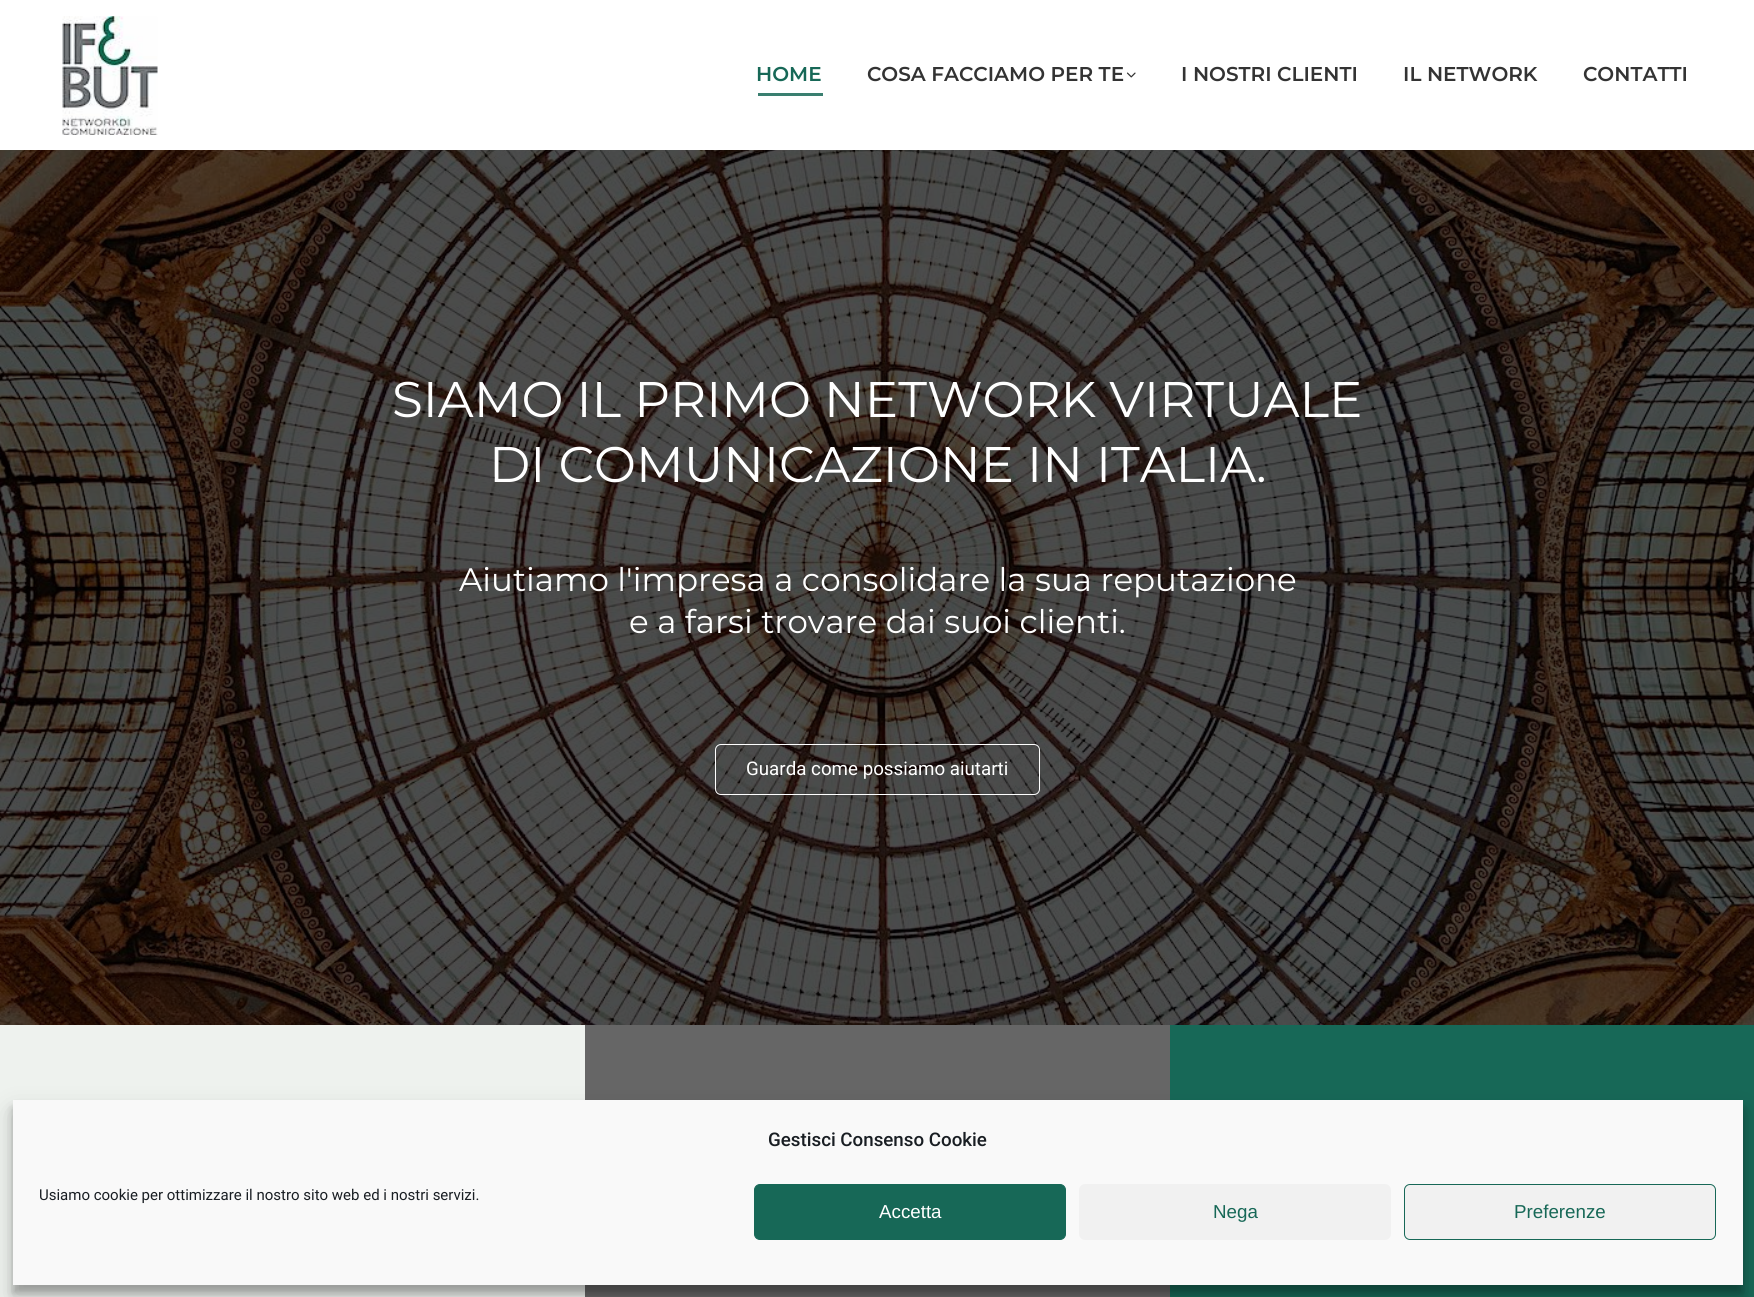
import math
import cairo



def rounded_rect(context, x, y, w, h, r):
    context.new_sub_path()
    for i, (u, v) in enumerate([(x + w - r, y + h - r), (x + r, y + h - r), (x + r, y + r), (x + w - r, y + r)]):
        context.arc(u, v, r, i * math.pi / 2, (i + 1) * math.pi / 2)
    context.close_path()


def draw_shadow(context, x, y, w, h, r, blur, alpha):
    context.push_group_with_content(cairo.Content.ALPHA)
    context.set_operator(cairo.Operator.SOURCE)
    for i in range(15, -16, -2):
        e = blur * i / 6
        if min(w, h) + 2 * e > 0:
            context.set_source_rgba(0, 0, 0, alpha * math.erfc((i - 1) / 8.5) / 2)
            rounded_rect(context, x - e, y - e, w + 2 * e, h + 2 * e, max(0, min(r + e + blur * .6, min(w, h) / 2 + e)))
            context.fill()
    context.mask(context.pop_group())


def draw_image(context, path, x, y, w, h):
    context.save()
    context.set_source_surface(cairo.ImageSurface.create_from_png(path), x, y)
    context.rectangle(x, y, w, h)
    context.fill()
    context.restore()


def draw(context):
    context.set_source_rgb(1, 1, 1)
    context.paint()
    draw_image(context, "images/1.png", 62, 16, 96, 119)
    context.set_source_rgb(58 / 255, 127 / 255, 112 / 255)
    context.rectangle(758, 93, 65, 3)
    context.fill()
    draw_image(context, "images/2.png", 1126, 72, 10, 6)
    draw_image(context, "images/3.png", 0, 150, 1754, 875)
    rounded_rect(context, 715.5, 744.5, 324, 50, 5.5)
    context.set_source_rgb(1, 1, 1)
    context.set_line_width(1)
    context.stroke()
    context.set_source_rgb(238 / 255, 242 / 255, 238 / 255)
    context.rectangle(0, 1025, 585, 272)
    context.fill()
    context.set_source_rgb(102 / 255, 102 / 255, 102 / 255)
    context.rectangle(585, 1025, 585, 272)
    context.fill()
    context.set_source_rgb(23 / 255, 104 / 255, 87 / 255)
    context.rectangle(1170, 1025, 584, 272)
    context.fill()
    context.set_source_rgb(0, 0, 0)
    draw_shadow(context, 13, 1108, 1730, 185, 0, 4, 0.23)
    draw_shadow(context, 13, 1113, 1730, 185, 0, 12.5, 0.19)
    context.set_source_rgb(249 / 255, 249 / 255, 249 / 255)
    context.rectangle(13, 1100, 1730, 185)
    context.fill()
    context.set_source_rgb(23 / 255, 104 / 255, 87 / 255)
    rounded_rect(context, 754.5, 1184.5, 311, 55, 5.5)
    context.fill_preserve()
    context.stroke()
    context.set_source_rgb(241 / 255, 241 / 255, 241 / 255)
    rounded_rect(context, 1079, 1184, 312, 56, 6)
    context.fill()
    rounded_rect(context, 1404.5, 1184.5, 311, 55, 5.5)
    context.fill_preserve()
    context.set_source_rgb(23 / 255, 104 / 255, 87 / 255)
    context.stroke()
    context.select_font_face("Montserrat SemiBold")
    context.set_font_size(20)
    context.move_to(756, 81)
    context.show_text("HOME")
    context.set_source_rgb(51 / 255, 51 / 255, 51 / 255)
    context.move_to(867, 81)
    context.show_text("COSA FACCIAMO PER TE")
    context.move_to(1181, 81)
    context.show_text("I NOSTRI CLIENTI")
    context.move_to(1403, 81)
    context.show_text("IL NETWORK")
    context.move_to(1583, 81)
    context.show_text("CONTATTI")
    context.select_font_face("Montserrat")
    context.set_font_size(50)
    context.set_source_rgb(1, 1, 1)
    context.move_to(392, 417)
    context.show_text("SIAMO IL PRIMO NETWORK VIRTUALE")
    context.move_to(489, 482)
    context.show_text("DI COMUNICAZIONE IN ITALIA.")
    context.set_font_size(32.5)
    context.move_to(459, 591)
    context.show_text("Aiutiamo l'impresa a consolidare la sua reputazione")
    context.move_to(629, 633)
    context.show_text("e a farsi trovare dai suoi clienti.")
    context.select_font_face("Roboto")
    context.set_font_size(18.75)
    context.move_to(746, 775)
    context.show_text("Guarda come possiamo aiutarti")
    context.select_font_face("Roboto Medium")
    context.set_source_rgb(25 / 255, 30 / 255, 35 / 255)
    context.move_to(768, 1146)
    context.show_text("Gestisci Consenso Cookie")
    context.select_font_face("Roboto")
    context.set_font_size(15)
    context.move_to(39, 1200)
    context.show_text("Usiamo cookie per ottimizzare il nostro sito web ed i nostri servizi.")
    context.select_font_face("Liberation Sans")
    context.set_font_size(18.75)
    context.set_source_rgb(1, 1, 1)
    context.move_to(879, 1218)
    context.show_text("Accetta")
    context.set_source_rgb(23 / 255, 104 / 255, 87 / 255)
    context.move_to(1213, 1218)
    context.show_text("Nega")
    context.move_to(1514, 1218)
    context.show_text("Preferenze")


surface = cairo.ImageSurface(cairo.Format.RGB24, 1754, 1297)
context = cairo.Context(surface)
options = cairo.FontOptions()
options.set_hint_metrics(cairo.HintMetrics.OFF)
options.set_hint_style(cairo.HintStyle.NONE)
context.set_font_options(options)
context.set_miter_limit(4)
draw(context)
surface.write_to_png("out.png")
